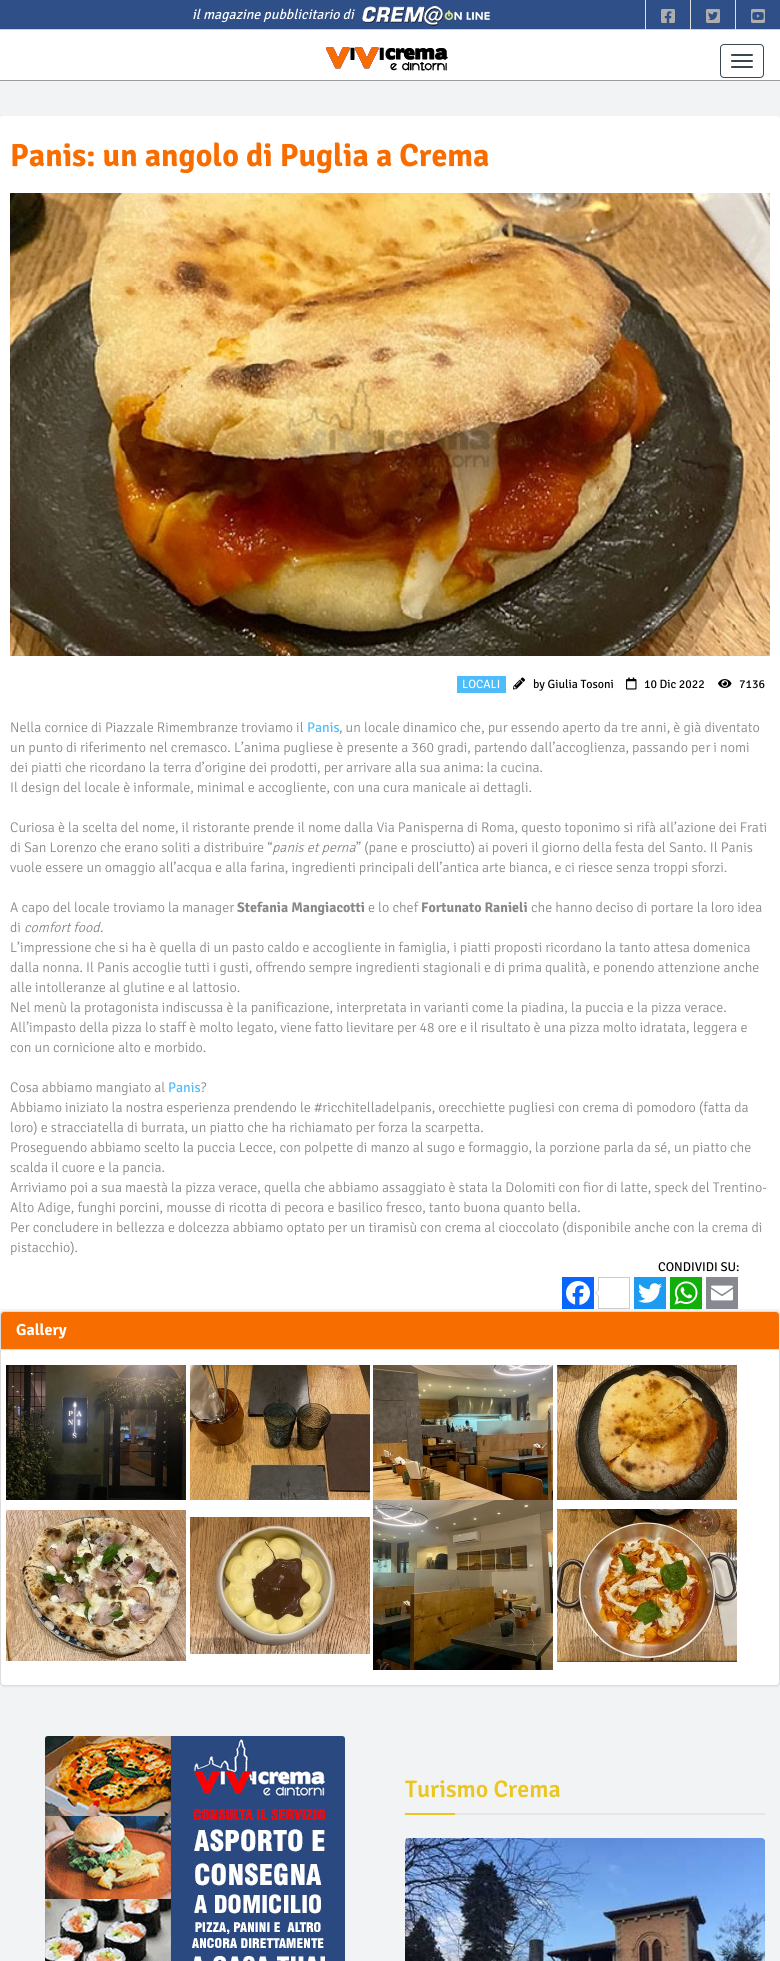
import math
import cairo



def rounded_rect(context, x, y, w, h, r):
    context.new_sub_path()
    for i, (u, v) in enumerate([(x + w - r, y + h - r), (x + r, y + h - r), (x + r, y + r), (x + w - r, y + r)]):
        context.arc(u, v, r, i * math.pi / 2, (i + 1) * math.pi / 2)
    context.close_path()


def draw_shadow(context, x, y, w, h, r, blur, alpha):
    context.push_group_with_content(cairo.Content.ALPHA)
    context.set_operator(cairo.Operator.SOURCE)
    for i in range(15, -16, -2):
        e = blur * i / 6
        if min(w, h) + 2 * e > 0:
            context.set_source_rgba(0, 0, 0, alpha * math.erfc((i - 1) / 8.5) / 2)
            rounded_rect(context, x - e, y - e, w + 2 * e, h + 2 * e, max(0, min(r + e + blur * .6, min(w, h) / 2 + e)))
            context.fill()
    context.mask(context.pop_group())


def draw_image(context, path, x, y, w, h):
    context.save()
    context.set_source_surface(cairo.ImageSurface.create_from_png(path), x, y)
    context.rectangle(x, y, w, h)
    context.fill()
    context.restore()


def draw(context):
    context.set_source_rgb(242 / 255, 243 / 255, 245 / 255)
    context.paint()
    context.set_source_rgb(158 / 255, 154 / 255, 154 / 255)
    context.rectangle(0, 80, 780, 1)
    context.fill()
    context.set_source_rgb(47 / 255, 79 / 255, 136 / 255)
    context.rectangle(0, 0, 780, 29)
    context.fill()
    context.set_source_rgb(209 / 255, 209 / 255, 209 / 255)
    context.rectangle(0, 29, 780, 1)
    context.fill()
    draw_image(context, "images/1.png", 362, 6, 128, 20)
    context.set_source_rgb(222 / 255, 223 / 255, 224 / 255)
    context.rectangle(645, 0, 1, 35)
    context.fill()
    draw_image(context, "images/2.png", 661, 9, 14, 14)
    context.rectangle(690, 0, 1, 35)
    context.fill()
    draw_image(context, "images/3.png", 706, 9, 14, 14)
    context.rectangle(735, 0, 1, 35)
    context.fill()
    draw_image(context, "images/4.png", 751, 9, 14, 14)
    context.set_source_rgb(1, 1, 1)
    context.rectangle(0, 30, 780, 50)
    context.fill()
    draw_image(context, "images/5.png", 326, 47, 122, 24)
    rounded_rect(context, 720.5, 44.5, 43, 33, 3.5)
    context.set_source_rgb(56 / 255, 70 / 255, 80 / 255)
    context.set_line_width(1)
    context.stroke()
    rounded_rect(context, 731, 54, 22, 2, 1)
    context.fill()
    rounded_rect(context, 731, 60, 22, 2, 1)
    context.fill()
    rounded_rect(context, 731, 66, 22, 2, 1)
    context.fill()
    context.set_source_rgb(0, 0, 0)
    draw_shadow(context, 0, 1312, 780, 375, 4, 0.5, 0.05)
    context.set_source_rgb(1, 1, 1)
    rounded_rect(context, 0, 116, 780, 1195, 3)
    context.fill()
    context.set_source_rgb(242 / 255, 243 / 255, 245 / 255)
    context.rectangle(2, 1309, 777, 2)
    context.fill()
    draw_image(context, "images/6.png", 10, 193, 760, 463)
    context.set_source_rgb(77 / 255, 188 / 255, 250 / 255)
    context.rectangle(457, 676, 49, 17)
    context.fill()
    draw_image(context, "images/7.png", 513, 677, 12, 13)
    draw_image(context, "images/8.png", 626, 677, 11, 13)
    draw_image(context, "images/9.png", 718, 679, 14, 9)
    context.set_source_rgb(8 / 255, 102 / 255, 1)
    context.rectangle(562, 1277, 32, 32)
    context.fill()
    draw_image(context, "images/10.png", 566, 1281, 24, 24)
    context.rectangle(598.5, 1277.5, 31, 31)
    context.set_source_rgb(204 / 255, 204 / 255, 204 / 255)
    context.stroke()
    context.new_path()
    context.move_to(599, 1289)
    context.line_to(599, 1297)
    context.line_to(595, 1293)
    context.close_path()
    context.fill()
    context.set_source_rgb(1, 1, 1)
    context.new_path()
    context.move_to(600, 1289)
    context.line_to(600, 1297)
    context.line_to(596, 1293)
    context.close_path()
    context.fill()
    context.set_source_rgb(29 / 255, 155 / 255, 240 / 255)
    context.rectangle(634, 1277, 32, 32)
    context.fill()
    draw_image(context, "images/11.png", 638, 1283, 24, 20)
    context.set_source_rgb(18 / 255, 175 / 255, 10 / 255)
    context.rectangle(670, 1277, 32, 32)
    context.fill()
    draw_image(context, "images/12.png", 674, 1281, 24, 24)
    context.set_source_rgb(136 / 255, 137 / 255, 144 / 255)
    context.rectangle(706, 1277, 32, 32)
    context.fill()
    draw_image(context, "images/13.png", 711, 1285, 22, 16)
    context.set_source_rgb(1, 1, 1)
    rounded_rect(context, 0.5, 1311.5, 779, 374, 3.5)
    context.fill_preserve()
    context.set_source_rgb(221 / 255, 221 / 255, 221 / 255)
    context.stroke()
    context.set_source_rgb(248 / 255, 109 / 255, 0)
    context.new_path()
    context.move_to(4, 1312)
    context.line_to(776, 1312)
    context.curve_to(777.5, 1312, 779, 1313.5, 779, 1315)
    context.line_to(779, 1350)
    context.line_to(1, 1350)
    context.line_to(1, 1315)
    context.curve_to(1, 1313.5, 2.5, 1312, 4, 1312)
    context.close_path()
    context.fill()
    context.set_source_rgb(221 / 255, 221 / 255, 221 / 255)
    context.rectangle(1, 1349, 778, 1)
    context.fill()
    draw_image(context, "images/14.png", 6, 1365, 180, 135)
    draw_image(context, "images/15.png", 190, 1365, 180, 135)
    draw_image(context, "images/16.png", 373, 1365, 180, 135)
    draw_image(context, "images/17.png", 557, 1365, 180, 135)
    draw_image(context, "images/18.png", 6, 1510, 180, 151)
    draw_image(context, "images/19.png", 190, 1517, 180, 137)
    draw_image(context, "images/20.png", 373, 1500, 180, 170)
    draw_image(context, "images/21.png", 557, 1509, 180, 153)
    draw_image(context, "images/22.png", 45, 1736, 300, 225)
    context.set_source_rgb(236 / 255, 198 / 255, 32 / 255)
    context.rectangle(405, 1813, 50, 2)
    context.fill()
    context.set_source_rgb(230 / 255, 230 / 255, 232 / 255)
    context.rectangle(455, 1813, 310, 2)
    context.fill()
    context.set_source_rgb(1, 1, 1)
    rounded_rect(context, 405, 1838, 360, 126, 3)
    context.fill()
    draw_image(context, "images/23.png", 405, 1838, 360, 123)
    context.select_font_face("Signika Negative", cairo.FontSlant.ITALIC)
    context.set_font_size(14)
    context.move_to(192, 19)
    context.show_text("il magazine pubblicitario di")
    context.select_font_face("Signika Negative", cairo.FontSlant.NORMAL, cairo.FontWeight.BOLD)
    context.set_font_size(32)
    context.set_source_rgb(248 / 255, 109 / 255, 0)
    context.move_to(10, 166)
    context.show_text("Panis: un angolo di Puglia a Crema")
    context.select_font_face("Signika Negative")
    context.set_font_size(12)
    context.set_source_rgb(1, 1, 1)
    context.move_to(462, 688)
    context.show_text("LOCALI")
    context.set_source_rgb(0, 0, 0)
    context.move_to(533, 688)
    context.show_text("by Giulia Tosoni")
    context.move_to(644, 688)
    context.show_text("10 Dic 2022")
    context.move_to(739, 688)
    context.show_text("7136")
    context.select_font_face("Signika Negative Light")
    context.set_font_size(14)
    context.set_source_rgb(136 / 255, 136 / 255, 136 / 255)
    context.move_to(10, 732)
    context.show_text("Nella cornice di Piazzale Rimembranze troviamo il")
    context.select_font_face("Signika Negative")
    context.set_source_rgb(77 / 255, 188 / 255, 250 / 255)
    context.move_to(307, 732)
    context.show_text("Panis")
    context.select_font_face("Signika Negative Light")
    context.set_source_rgb(136 / 255, 136 / 255, 136 / 255)
    context.move_to(339, 732)
    context.show_text(", un locale dinamico che, pur essendo aperto da tre anni, è già diventato")
    context.move_to(10, 752)
    context.show_text("un punto di riferimento nel cremasco. L’anima pugliese è presente a 360 gradi, partendo dall’accoglienza, passando per i nomi")
    context.move_to(10, 772)
    context.show_text("dei piatti che ricordano la terra d’origine dei prodotti, per arrivare alla sua anima: la cucina.")
    context.move_to(10, 792)
    context.show_text("Il design del locale è informale, minimal e accogliente, con una cura manicale ai dettagli.")
    context.move_to(10, 832)
    context.show_text("Curiosa è la scelta del nome, il ristorante prende il nome dalla Via Panisperna di Roma, questo toponimo si rifà all’azione dei Frati")
    context.move_to(10, 852)
    context.show_text("di San Lorenzo che erano soliti a distribuire “")
    context.select_font_face("Signika Negative Light", cairo.FontSlant.ITALIC)
    context.move_to(272, 852)
    context.show_text("panis et perna")
    context.select_font_face("Signika Negative Light")
    context.move_to(356, 852)
    context.show_text("” (pane e prosciutto) ai poveri il giorno della festa del Santo. Il Panis")
    context.move_to(10, 872)
    context.show_text("vuole essere un omaggio all’acqua e alla farina, ingredienti principali dell’antica arte bianca, e ci riesce senza troppi sforzi.")
    context.move_to(10, 912)
    context.show_text("A capo del locale troviamo la manager")
    context.select_font_face("Signika Negative", cairo.FontSlant.NORMAL, cairo.FontWeight.BOLD)
    context.move_to(237, 912)
    context.show_text("Stefania Mangiacotti")
    context.select_font_face("Signika Negative Light")
    context.move_to(368, 912)
    context.show_text("e lo chef")
    context.select_font_face("Signika Negative", cairo.FontSlant.NORMAL, cairo.FontWeight.BOLD)
    context.move_to(421, 912)
    context.show_text("Fortunato Ranieli")
    context.select_font_face("Signika Negative Light")
    context.move_to(531, 912)
    context.show_text("che hanno deciso di portare la loro idea")
    context.move_to(10, 932)
    context.show_text("di")
    context.select_font_face("Signika Negative Light", cairo.FontSlant.ITALIC)
    context.move_to(24, 932)
    context.show_text("comfort food")
    context.select_font_face("Signika Negative Light")
    context.move_to(100, 932)
    context.show_text(".")
    context.move_to(10, 952)
    context.show_text("L’impressione che si ha è quella di un pasto caldo e accogliente in famiglia, i piatti proposti ricordano la tanto attesa domenica")
    context.move_to(10, 972)
    context.show_text("dalla nonna. Il Panis accoglie tutti i gusti, offrendo sempre ingredienti stagionali e di prima qualità, e ponendo attenzione anche")
    context.move_to(10, 992)
    context.show_text("alle intolleranze al glutine e al lattosio.")
    context.move_to(10, 1012)
    context.show_text("Nel menù la protagonista indiscussa è la panificazione, interpretata in varianti come la piadina, la puccia e la pizza verace.")
    context.move_to(10, 1032)
    context.show_text("All’impasto della pizza lo staff è molto legato, viene fatto lievitare per 48 ore e il risultato è una pizza molto idratata, leggera e")
    context.move_to(10, 1052)
    context.show_text("con un cornicione alto e morbido.")
    context.move_to(10, 1092)
    context.show_text("Cosa abbiamo mangiato al")
    context.select_font_face("Signika Negative")
    context.set_source_rgb(77 / 255, 188 / 255, 250 / 255)
    context.move_to(168, 1092)
    context.show_text("Panis")
    context.select_font_face("Signika Negative Light")
    context.set_source_rgb(136 / 255, 136 / 255, 136 / 255)
    context.move_to(201, 1092)
    context.show_text("?")
    context.move_to(10, 1112)
    context.show_text("Abbiamo iniziato la nostra esperienza prendendo le #ricchitelladelpanis, orecchiette pugliesi con crema di pomodoro (fatta da")
    context.move_to(10, 1132)
    context.show_text("loro) e stracciatella di burrata, un piatto che ha richiamato per forza la scarpetta.")
    context.move_to(10, 1152)
    context.show_text("Proseguendo abbiamo scelto la puccia Lecce, con polpette di manzo al sugo e formaggio, la porzione parla da sé, un piatto che")
    context.move_to(10, 1172)
    context.show_text("scalda il cuore e la pancia.")
    context.move_to(10, 1192)
    context.show_text("Arriviamo poi a sua maestà la pizza verace, quella che abbiamo assaggiato è stata la Dolomiti con fior di latte, speck del Trentino-")
    context.move_to(10, 1212)
    context.show_text("Alto Adige, funghi porcini, mousse di ricotta di pecora e basilico fresco, tanto buona quanto bella.")
    context.move_to(10, 1232)
    context.show_text("Per concludere in bellezza e dolcezza abbiamo optato per un tiramisù con crema al cioccolato (disponibile anche con la crema di")
    context.move_to(10, 1252)
    context.show_text("pistacchio).")
    context.select_font_face("Signika Negative")
    context.set_font_size(12.75)
    context.set_source_rgb(0, 0, 0)
    context.move_to(658, 1271)
    context.show_text("CONDIVIDI SU:")
    context.select_font_face("Signika Negative", cairo.FontSlant.NORMAL, cairo.FontWeight.BOLD)
    context.set_font_size(16)
    context.set_source_rgb(1, 1, 1)
    context.move_to(16, 1335)
    context.show_text("Gallery")
    context.select_font_face("Signika Negative SemiBold")
    context.set_font_size(24)
    context.set_source_rgb(236 / 255, 198 / 255, 32 / 255)
    context.move_to(405, 1797)
    context.show_text("Turismo Crema")


surface = cairo.ImageSurface(cairo.Format.RGB24, 780, 1961)
context = cairo.Context(surface)
options = cairo.FontOptions()
options.set_hint_metrics(cairo.HintMetrics.OFF)
options.set_hint_style(cairo.HintStyle.NONE)
context.set_font_options(options)
context.set_miter_limit(4)
draw(context)
surface.write_to_png("out.png")
